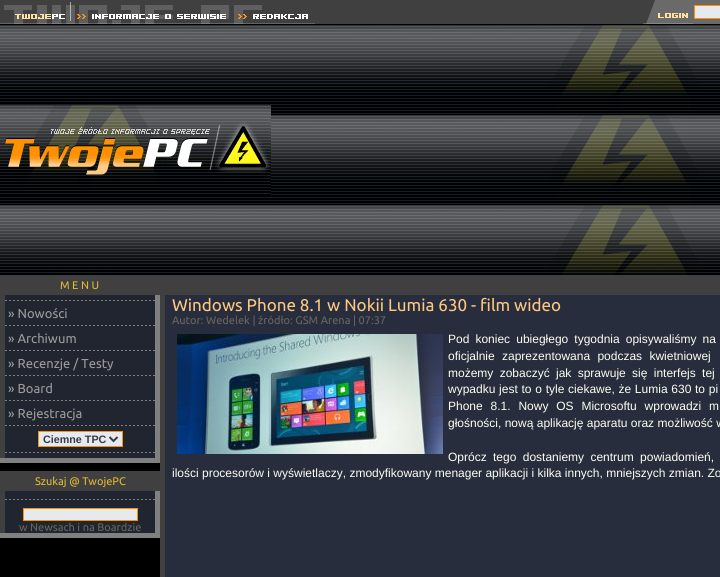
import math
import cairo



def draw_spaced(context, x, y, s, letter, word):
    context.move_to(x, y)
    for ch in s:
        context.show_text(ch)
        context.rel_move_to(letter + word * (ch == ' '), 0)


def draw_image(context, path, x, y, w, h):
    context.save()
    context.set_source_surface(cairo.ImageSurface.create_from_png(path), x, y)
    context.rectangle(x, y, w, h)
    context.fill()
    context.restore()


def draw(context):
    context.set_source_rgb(0, 0, 0)
    context.paint()
    context.set_source_rgb(64 / 255, 64 / 255, 64 / 255)
    context.rectangle(0, 0, 643, 24)
    context.fill()
    draw_image(context, "images/1.png", 0, 2, 71, 22)
    draw_image(context, "images/2.png", 71, 5, 161, 19)
    draw_image(context, "images/3.png", 232, 5, 83, 19)
    context.set_source_rgb(106 / 255, 106 / 255, 106 / 255)
    context.rectangle(693, 0, 27, 24)
    context.fill()
    draw_image(context, "images/4.png", 643, 0, 50, 24)
    context.set_source_rgb(231 / 255, 234 / 255, 237 / 255)
    context.rectangle(694.5, 5.5, 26, 13)
    context.fill_preserve()
    context.set_source_rgb(1, 144 / 255, 0)
    context.set_line_width(1)
    context.stroke()
    draw_image(context, "images/5.png", 0, 25, 720, 250)
    draw_image(context, "images/6.png", 0, 105, 271, 90)
    context.set_source_rgb(64 / 255, 64 / 255, 64 / 255)
    context.rectangle(5, 275, 155, 20)
    context.fill()
    context.rectangle(0, 275, 5, 183)
    context.fill()
    context.set_source_rgb(33 / 255, 37 / 255, 48 / 255)
    context.rectangle(5, 295, 150, 163)
    context.fill()
    draw_image(context, "images/7.png", 5, 300, 150, 1)
    draw_image(context, "images/7.png", 5, 325, 150, 1)
    draw_image(context, "images/7.png", 5, 350, 150, 1)
    draw_image(context, "images/7.png", 5, 375, 150, 1)
    draw_image(context, "images/7.png", 5, 400, 150, 1)
    draw_image(context, "images/7.png", 5, 425, 150, 1)
    context.set_source_rgb(231 / 255, 234 / 255, 237 / 255)
    context.rectangle(38.5, 431.5, 84, 15)
    context.fill_preserve()
    context.set_source_rgb(1, 144 / 255, 0)
    context.stroke()
    context.new_path()
    context.move_to(109.5, 437)
    context.line_to(113.5, 441)
    context.line_to(117.5, 437)
    context.set_source_rgb(52 / 255, 58 / 255, 73 / 255)
    context.set_line_width(2)
    context.stroke()
    draw_image(context, "images/7.png", 5, 452, 150, 1)
    context.set_source_rgb(128 / 255, 128 / 255, 128 / 255)
    context.rectangle(155, 295, 5, 163)
    context.fill()
    context.rectangle(0, 458, 160, 5)
    context.fill()
    context.set_source_rgb(64 / 255, 64 / 255, 64 / 255)
    context.rectangle(5, 471, 155, 20)
    context.fill()
    context.rectangle(0, 471, 5, 62)
    context.fill()
    context.set_source_rgb(33 / 255, 37 / 255, 48 / 255)
    context.rectangle(5, 491, 150, 42)
    context.fill()
    draw_image(context, "images/7.png", 5, 499, 150, 1)
    context.set_source_rgb(231 / 255, 234 / 255, 237 / 255)
    context.rectangle(23.5, 508.5, 114, 12)
    context.fill_preserve()
    context.set_source_rgb(1, 144 / 255, 0)
    context.set_line_width(1)
    context.stroke()
    context.set_source_rgb(128 / 255, 128 / 255, 128 / 255)
    context.rectangle(155, 491, 5, 42)
    context.fill()
    context.rectangle(0, 533, 160, 5)
    context.fill()
    context.set_source_rgb(64 / 255, 64 / 255, 64 / 255)
    context.rectangle(165, 275, 555, 20)
    context.fill()
    context.rectangle(160, 275, 5, 302)
    context.fill()
    context.set_source_rgb(39 / 255, 45 / 255, 61 / 255)
    context.rectangle(165, 295, 555, 282)
    context.fill()
    draw_image(context, "images/8.png", 177, 334, 266, 120)
    context.select_font_face("Ubuntu")
    context.set_font_size(11)
    context.set_source_rgb(229 / 255, 185 / 255, 51 / 255)
    context.move_to(60, 289)
    context.show_text("M E N U")
    context.set_font_size(13)
    context.set_source_rgb(156 / 255, 156 / 255, 156 / 255)
    context.move_to(8, 318)
    context.show_text("» Nowości")
    context.move_to(8, 343)
    context.show_text("» Archiwum")
    context.move_to(8, 368)
    context.show_text("» Recenzje / Testy")
    context.move_to(8, 393)
    context.show_text("» Board")
    context.move_to(8, 418)
    context.show_text("» Rejestracja")
    context.select_font_face("Liberation Sans", cairo.FontSlant.NORMAL, cairo.FontWeight.BOLD)
    context.set_font_size(10.75)
    context.set_source_rgb(52 / 255, 58 / 255, 73 / 255)
    context.move_to(43, 443)
    context.show_text("Ciemne TPC")
    context.select_font_face("Ubuntu")
    context.set_font_size(11)
    context.set_source_rgb(229 / 255, 185 / 255, 51 / 255)
    context.move_to(35, 485)
    context.show_text("Szukaj @ TwojePC")
    context.set_source_rgb(106 / 255, 102 / 255, 94 / 255)
    context.move_to(19, 531)
    context.show_text("w Newsach i na Boardzie")
    context.set_font_size(17)
    context.set_source_rgb(1, 200 / 255, 128 / 255)
    context.move_to(172, 311)
    context.show_text("Windows Phone 8.1 w Nokii Lumia 630 - film wideo")
    context.set_font_size(11)
    context.set_source_rgb(106 / 255, 102 / 255, 94 / 255)
    context.move_to(172, 324)
    context.show_text("Autor: Wedelek | źródło: GSM Arena | 07:37")
    context.select_font_face("Liberation Sans")
    context.set_font_size(12)
    context.set_source_rgb(254 / 255, 1, 240 / 255)
    draw_spaced(context, 448, 343, "Pod koniec ubiegłego tygodnia opisywaliśmy na", 0, 2.75)
    draw_spaced(context, 448, 360, "oficjalnie zaprezentowana podczas kwietniowej", 0, 4)
    draw_spaced(context, 448, 377, "możemy zobaczyć jak sprawuje się interfejs tej", 0, 3)
    draw_spaced(context, 448, 393, "wypadku jest to o tyle ciekawe, że Lumia 630 to pi", 0, 0.4)
    draw_spaced(context, 448, 410, "Phone 8.1. Nowy OS Microsoftu wprowadzi m", 0, 4.5)
    context.move_to(448, 427)
    context.show_text("głośności, nową aplikację aparatu oraz możliwość w")
    draw_spaced(context, 448, 461, "Oprócz tego dostaniemy centrum powiadomień,", 0, 3)
    context.move_to(172, 477)
    context.show_text("ilości procesorów i wyświetlaczy, zmodyfikowany menager aplikacji i kilka innych, mniejszych zmian. Zo")


surface = cairo.ImageSurface(cairo.Format.RGB24, 720, 577)
context = cairo.Context(surface)
options = cairo.FontOptions()
options.set_hint_metrics(cairo.HintMetrics.OFF)
options.set_hint_style(cairo.HintStyle.NONE)
context.set_font_options(options)
context.set_miter_limit(4)
draw(context)
surface.write_to_png("out.png")
